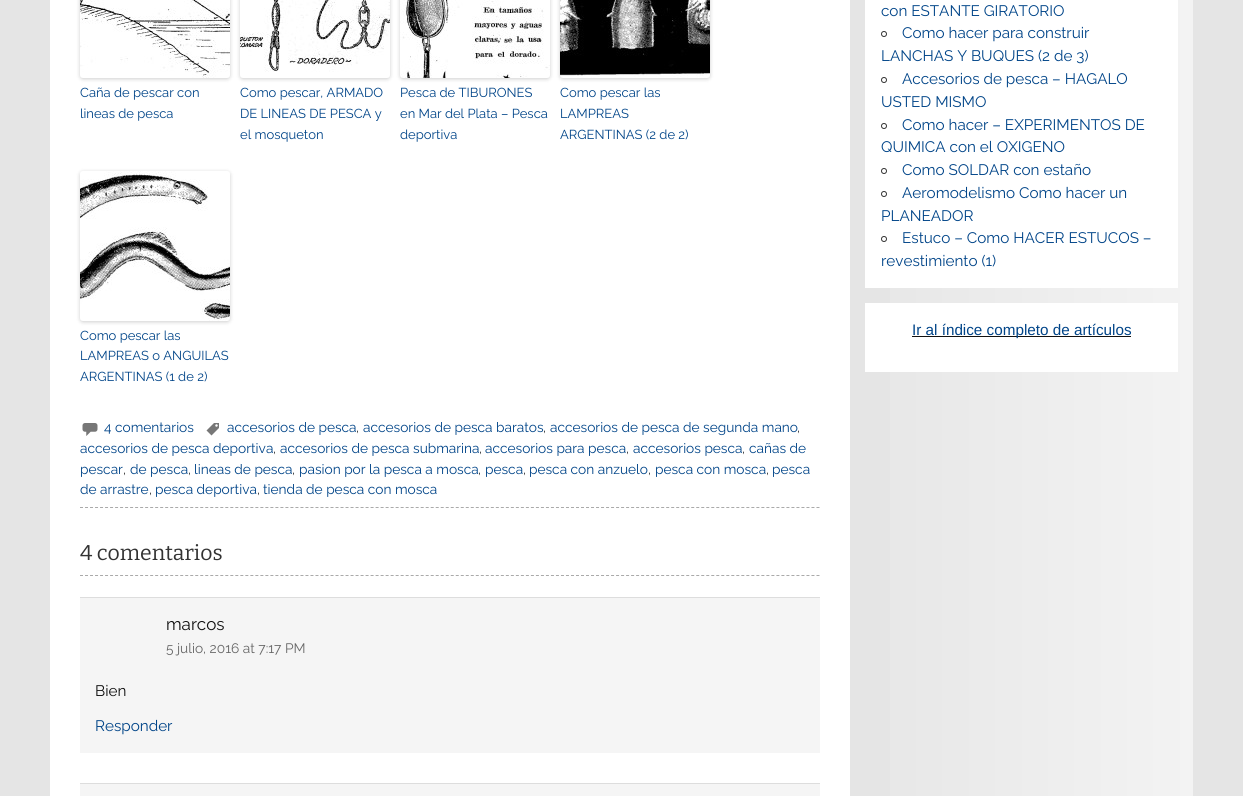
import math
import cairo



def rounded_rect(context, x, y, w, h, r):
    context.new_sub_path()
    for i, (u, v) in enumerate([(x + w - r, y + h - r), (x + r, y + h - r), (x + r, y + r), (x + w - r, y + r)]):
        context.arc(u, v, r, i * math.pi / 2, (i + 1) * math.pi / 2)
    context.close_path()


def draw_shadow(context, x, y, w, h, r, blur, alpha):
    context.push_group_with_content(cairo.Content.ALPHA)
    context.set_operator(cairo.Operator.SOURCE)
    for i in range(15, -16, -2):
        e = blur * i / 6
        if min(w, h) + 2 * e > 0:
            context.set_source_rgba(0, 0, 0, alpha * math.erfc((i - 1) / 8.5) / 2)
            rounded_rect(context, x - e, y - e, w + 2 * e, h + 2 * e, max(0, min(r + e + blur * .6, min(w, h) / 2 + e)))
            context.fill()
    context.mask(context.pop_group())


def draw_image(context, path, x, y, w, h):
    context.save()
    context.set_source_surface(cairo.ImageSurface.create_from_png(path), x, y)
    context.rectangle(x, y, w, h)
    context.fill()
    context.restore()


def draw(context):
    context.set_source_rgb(229 / 255, 229 / 255, 229 / 255)
    context.paint()
    context.set_source_rgb(1, 1, 1)
    context.rectangle(50, 0, 800, 796)
    context.fill()
    context.new_path()
    context.move_to(80, 507.5)
    context.line_to(820, 507.5)
    context.set_source_rgb(170 / 255, 170 / 255, 170 / 255)
    context.set_line_width(1)
    context.set_dash([3, 2.01])
    context.stroke()
    context.set_source_rgb(0, 0, 0)
    draw_shadow(context, 80, -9, 150, 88, 3, 2, 0.2)
    draw_image(context, "images/1.png", 80, 0, 150, 78)
    draw_shadow(context, 240, -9, 150, 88, 3, 2, 0.2)
    draw_image(context, "images/2.png", 240, 0, 150, 78)
    draw_shadow(context, 400, -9, 150, 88, 3, 2, 0.2)
    draw_image(context, "images/3.png", 400, 0, 150, 78)
    draw_shadow(context, 560, -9, 150, 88, 3, 2, 0.2)
    draw_image(context, "images/4.png", 560, 0, 150, 78)
    draw_shadow(context, 80, 172, 150, 150, 3, 2, 0.2)
    draw_image(context, "images/5.png", 80, 171, 150, 150)
    draw_image(context, "images/6.png", 206, 423, 13, 13)
    draw_image(context, "images/7.png", 82, 423, 16, 13)
    context.new_path()
    context.move_to(80, 575.5)
    context.line_to(820, 575.5)
    context.set_source_rgb(170 / 255, 170 / 255, 170 / 255)
    context.stroke()
    context.set_source_rgb(245 / 255, 245 / 255, 245 / 255)
    context.rectangle(80, 598, 740, 155)
    context.fill()
    context.set_source_rgb(221 / 255, 221 / 255, 221 / 255)
    context.rectangle(80, 597, 740, 1)
    context.fill()
    context.set_source_rgb(245 / 255, 245 / 255, 245 / 255)
    context.rectangle(80, 784, 740, 12)
    context.fill()
    context.set_source_rgb(221 / 255, 221 / 255, 221 / 255)
    context.rectangle(80, 783, 740, 1)
    context.fill()
    gradient = cairo.LinearGradient(850, -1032, 1193, -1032)
    gradient.add_color_stop_rgba(0, 230 / 255, 230 / 255, 230 / 255, 1)
    gradient.add_color_stop_rgba(1, 243 / 255, 243 / 255, 243 / 255, 1)
    context.set_source(gradient)
    context.rectangle(890, 0, 303, 796)
    context.fill()
    context.set_source_rgb(1, 1, 1)
    context.rectangle(865, 0, 313, 288)
    context.fill()
    context.arc(884, 34, 2.5, 0, 2 * math.pi)
    context.set_source_rgb(51 / 255, 51 / 255, 51 / 255)
    context.set_dash([])
    context.stroke()
    context.arc(884, 80, 2.5, 0, 2 * math.pi)
    context.stroke()
    context.arc(884, 126, 2.5, 0, 2 * math.pi)
    context.stroke()
    context.arc(884, 171, 2.5, 0, 2 * math.pi)
    context.stroke()
    context.arc(884, 194, 2.5, 0, 2 * math.pi)
    context.stroke()
    context.arc(884, 239, 2.5, 0, 2 * math.pi)
    context.stroke()
    context.set_source_rgb(1, 1, 1)
    context.rectangle(865, 303, 313, 69)
    context.fill()
    context.set_source_rgb(17 / 255, 17 / 255, 17 / 255)
    context.rectangle(912, 336, 219, 1)
    context.fill()
    context.select_font_face("Raleway")
    context.set_font_size(13)
    context.set_source_rgb(0, 68 / 255, 136 / 255)
    context.move_to(80, 97)
    context.show_text("Caña de pescar con")
    context.move_to(80, 118)
    context.show_text("lineas de pesca")
    context.move_to(240, 97)
    context.show_text("Como pescar, ARMADO")
    context.move_to(240, 118)
    context.show_text("DE LINEAS DE PESCA y")
    context.move_to(240, 139)
    context.show_text("el mosqueton")
    context.move_to(400, 97)
    context.show_text("Pesca de TIBURONES")
    context.move_to(400, 118)
    context.show_text("en Mar del Plata – Pesca")
    context.move_to(400, 139)
    context.show_text("deportiva")
    context.move_to(560, 97)
    context.show_text("Como pescar las")
    context.move_to(560, 118)
    context.show_text("LAMPREAS")
    context.move_to(560, 139)
    context.show_text("ARGENTINAS (2 de 2)")
    context.move_to(80, 340)
    context.show_text("Como pescar las")
    context.move_to(80, 360)
    context.show_text("LAMPREAS o ANGUILAS")
    context.move_to(80, 381)
    context.show_text("ARGENTINAS (1 de 2)")
    context.set_font_size(13.7)
    context.move_to(227, 432)
    context.show_text("accesorios de pesca")
    context.set_source_rgb(51 / 255, 51 / 255, 51 / 255)
    context.move_to(356, 432)
    context.show_text(",")
    context.set_source_rgb(0, 68 / 255, 136 / 255)
    context.move_to(363, 432)
    context.show_text("accesorios de pesca baratos")
    context.set_source_rgb(51 / 255, 51 / 255, 51 / 255)
    context.move_to(543, 432)
    context.show_text(",")
    context.set_source_rgb(0, 68 / 255, 136 / 255)
    context.move_to(550, 432)
    context.show_text("accesorios de pesca de segunda mano")
    context.set_source_rgb(51 / 255, 51 / 255, 51 / 255)
    context.move_to(797, 432)
    context.show_text(",")
    context.set_source_rgb(0, 68 / 255, 136 / 255)
    context.move_to(80, 453)
    context.show_text("accesorios de pesca deportiva")
    context.set_source_rgb(51 / 255, 51 / 255, 51 / 255)
    context.move_to(273, 453)
    context.show_text(",")
    context.set_source_rgb(0, 68 / 255, 136 / 255)
    context.move_to(280, 453)
    context.show_text("accesorios de pesca submarina")
    context.set_source_rgb(51 / 255, 51 / 255, 51 / 255)
    context.move_to(479, 453)
    context.show_text(",")
    context.set_source_rgb(0, 68 / 255, 136 / 255)
    context.move_to(485, 453)
    context.show_text("accesorios para pesca")
    context.set_source_rgb(51 / 255, 51 / 255, 51 / 255)
    context.move_to(626, 453)
    context.show_text(",")
    context.set_source_rgb(0, 68 / 255, 136 / 255)
    context.move_to(633, 453)
    context.show_text("accesorios pesca")
    context.set_source_rgb(51 / 255, 51 / 255, 51 / 255)
    context.move_to(742, 453)
    context.show_text(",")
    context.set_source_rgb(0, 68 / 255, 136 / 255)
    context.move_to(749, 453)
    context.show_text("cañas de")
    context.move_to(80, 474)
    context.show_text("pescar")
    context.set_source_rgb(51 / 255, 51 / 255, 51 / 255)
    context.move_to(123, 474)
    context.show_text(",")
    context.set_source_rgb(0, 68 / 255, 136 / 255)
    context.move_to(130, 474)
    context.show_text("de pesca")
    context.set_source_rgb(51 / 255, 51 / 255, 51 / 255)
    context.move_to(188, 474)
    context.show_text(",")
    context.set_source_rgb(0, 68 / 255, 136 / 255)
    context.move_to(194, 474)
    context.show_text("lineas de pesca")
    context.set_source_rgb(51 / 255, 51 / 255, 51 / 255)
    context.move_to(292, 474)
    context.show_text(",")
    context.set_source_rgb(0, 68 / 255, 136 / 255)
    context.move_to(299, 474)
    context.show_text("pasion por la pesca a mosca")
    context.set_source_rgb(51 / 255, 51 / 255, 51 / 255)
    context.move_to(478, 474)
    context.show_text(",")
    context.set_source_rgb(0, 68 / 255, 136 / 255)
    context.move_to(485, 474)
    context.show_text("pesca")
    context.set_source_rgb(51 / 255, 51 / 255, 51 / 255)
    context.move_to(523, 474)
    context.show_text(",")
    context.set_source_rgb(0, 68 / 255, 136 / 255)
    context.move_to(529, 474)
    context.show_text("pesca con anzuelo")
    context.set_source_rgb(51 / 255, 51 / 255, 51 / 255)
    context.move_to(648, 474)
    context.show_text(",")
    context.set_source_rgb(0, 68 / 255, 136 / 255)
    context.move_to(655, 474)
    context.show_text("pesca con mosca")
    context.set_source_rgb(51 / 255, 51 / 255, 51 / 255)
    context.move_to(766, 474)
    context.show_text(",")
    context.set_source_rgb(0, 68 / 255, 136 / 255)
    context.move_to(772, 474)
    context.show_text("pesca")
    context.move_to(80, 494)
    context.show_text("de arrastre")
    context.set_source_rgb(51 / 255, 51 / 255, 51 / 255)
    context.move_to(149, 494)
    context.show_text(",")
    context.set_source_rgb(0, 68 / 255, 136 / 255)
    context.move_to(155, 494)
    context.show_text("pesca deportiva")
    context.set_source_rgb(51 / 255, 51 / 255, 51 / 255)
    context.move_to(257, 494)
    context.show_text(",")
    context.set_source_rgb(0, 68 / 255, 136 / 255)
    context.move_to(263, 494)
    context.show_text("tienda de pesca con mosca")
    context.move_to(104, 432)
    context.show_text("4 comentarios")
    context.select_font_face("Bitter Thin")
    context.set_font_size(21.25)
    context.set_source_rgb(51 / 255, 51 / 255, 51 / 255)
    context.move_to(80, 560)
    context.show_text("4 comentarios")
    context.select_font_face("Raleway")
    context.set_font_size(17)
    context.set_source_rgb(17 / 255, 17 / 255, 17 / 255)
    context.move_to(166, 630)
    context.show_text("marcos")
    context.set_font_size(13.7)
    context.set_source_rgb(102 / 255, 102 / 255, 102 / 255)
    context.move_to(166, 653)
    context.show_text("5 julio, 2016 at 7:17 PM")
    context.set_font_size(15.25)
    context.set_source_rgb(17 / 255, 17 / 255, 17 / 255)
    context.move_to(95, 696)
    context.show_text("Bien")
    context.set_source_rgb(0, 68 / 255, 136 / 255)
    context.move_to(95, 731)
    context.show_text("Responder")
    context.move_to(881, 16)
    context.show_text("con ESTANTE GIRATORIO")
    context.move_to(902, 38)
    context.show_text("Como hacer para construir")
    context.move_to(881, 61)
    context.show_text("LANCHAS Y BUQUES (2 de 3)")
    context.move_to(902, 84)
    context.show_text("Accesorios de pesca – HAGALO")
    context.move_to(881, 107)
    context.show_text("USTED MISMO")
    context.move_to(902, 130)
    context.show_text("Como hacer – EXPERIMENTOS DE")
    context.move_to(881, 152)
    context.show_text("QUIMICA con el OXIGENO")
    context.move_to(902, 175)
    context.show_text("Como SOLDAR con estaño")
    context.move_to(902, 198)
    context.show_text("Aeromodelismo Como hacer un")
    context.move_to(881, 221)
    context.show_text("PLANEADOR")
    context.move_to(902, 243)
    context.show_text("Estuco – Como HACER ESTUCOS –")
    context.move_to(881, 266)
    context.show_text("revestimiento (1)")
    context.select_font_face("Liberation Sans")
    context.move_to(912, 335)
    context.show_text("Ir al índice completo de artículos")


surface = cairo.ImageSurface(cairo.Format.RGB24, 1243, 796)
context = cairo.Context(surface)
options = cairo.FontOptions()
options.set_hint_metrics(cairo.HintMetrics.OFF)
options.set_hint_style(cairo.HintStyle.NONE)
context.set_font_options(options)
context.set_miter_limit(4)
draw(context)
surface.write_to_png("out.png")
